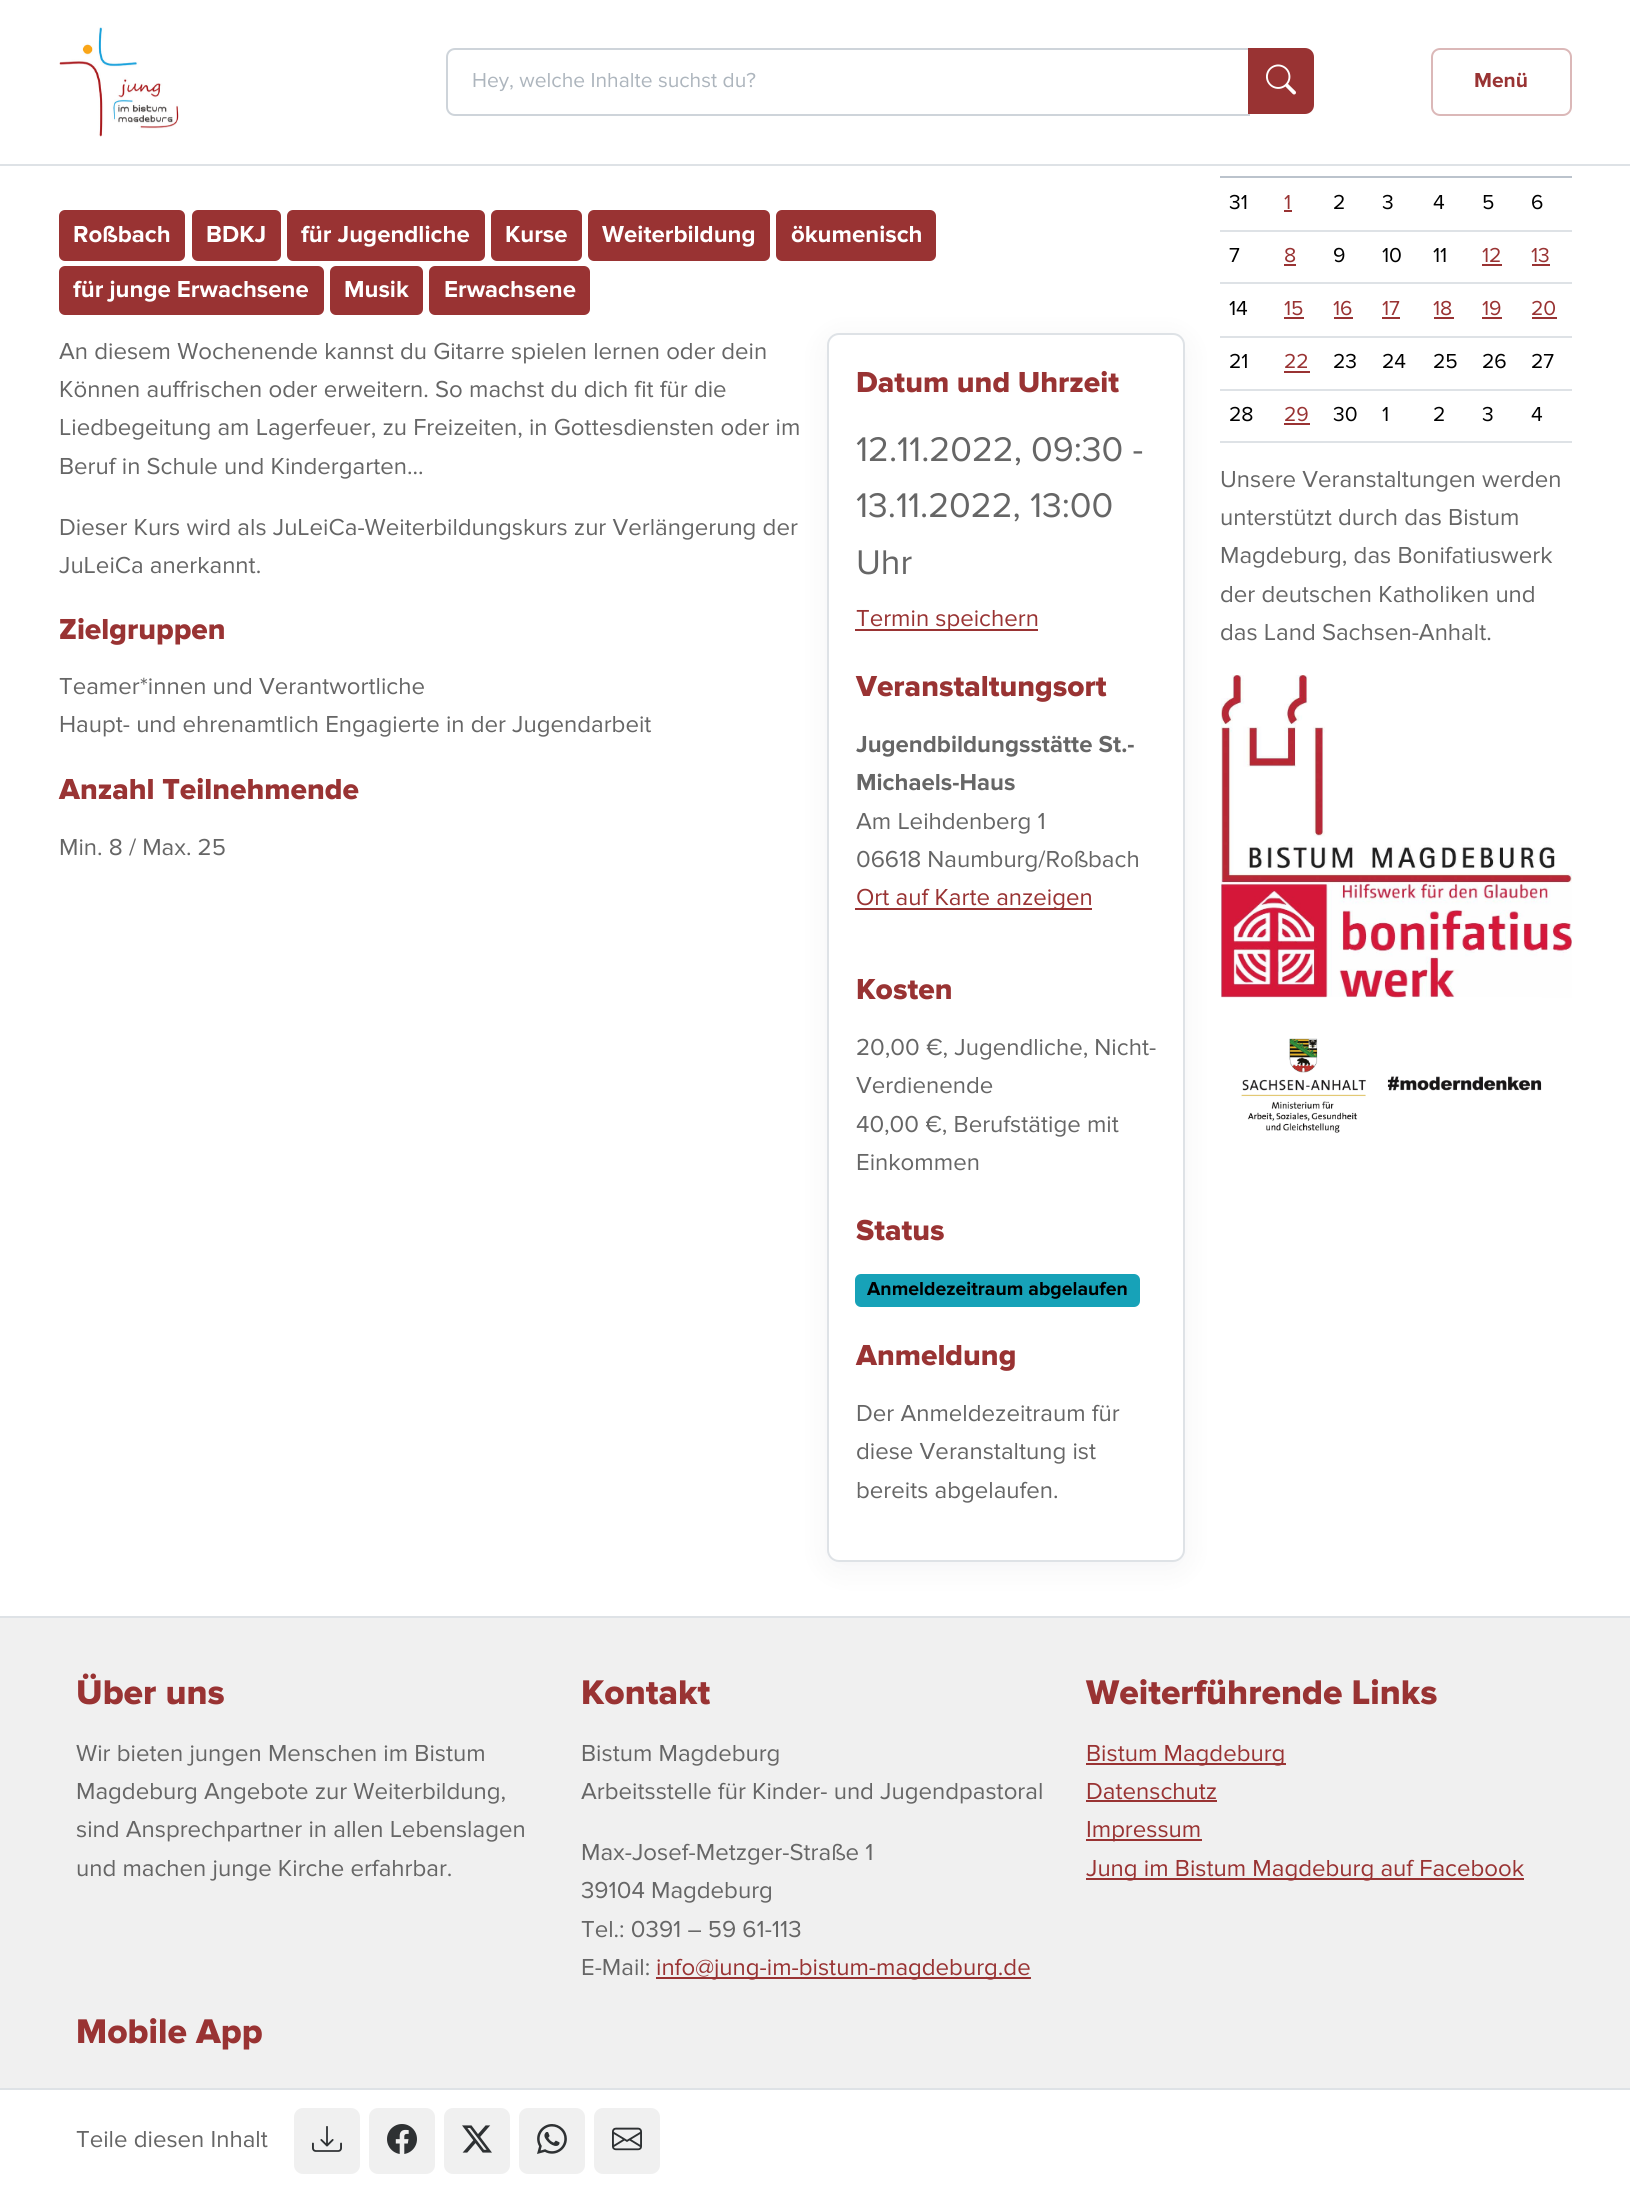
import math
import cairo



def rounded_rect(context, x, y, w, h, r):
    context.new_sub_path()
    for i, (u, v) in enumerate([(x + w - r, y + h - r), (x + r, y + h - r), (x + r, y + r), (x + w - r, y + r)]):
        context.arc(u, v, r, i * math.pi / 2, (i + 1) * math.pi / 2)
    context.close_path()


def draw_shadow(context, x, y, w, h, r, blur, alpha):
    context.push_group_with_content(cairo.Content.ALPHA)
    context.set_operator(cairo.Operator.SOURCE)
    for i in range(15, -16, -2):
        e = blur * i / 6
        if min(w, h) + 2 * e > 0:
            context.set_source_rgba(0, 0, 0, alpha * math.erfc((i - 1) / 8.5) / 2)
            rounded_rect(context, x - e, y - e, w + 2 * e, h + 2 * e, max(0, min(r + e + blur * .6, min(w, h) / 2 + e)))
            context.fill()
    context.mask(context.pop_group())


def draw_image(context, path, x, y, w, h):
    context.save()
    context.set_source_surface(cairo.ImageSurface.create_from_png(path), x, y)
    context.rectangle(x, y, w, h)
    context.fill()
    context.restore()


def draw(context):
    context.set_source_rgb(1, 1, 1)
    context.paint()
    context.set_source_rgb(222 / 255, 226 / 255, 230 / 255)
    context.rectangle(0, 164, 1630, 2)
    context.fill()
    draw_image(context, "images/1.png", 59, 27, 120, 110)
    context.new_path()
    context.move_to(455, 49)
    context.line_to(1249, 49)
    context.line_to(1249, 115)
    context.line_to(455, 115)
    context.curve_to(450.5, 115, 447, 111.5, 447, 107)
    context.line_to(447, 57)
    context.curve_to(447, 52.5, 450.5, 49, 455, 49)
    context.close_path()
    context.set_source_rgb(206 / 255, 212 / 255, 218 / 255)
    context.stroke()
    context.set_source_rgb(153 / 255, 51 / 255, 51 / 255)
    context.new_path()
    context.move_to(1249, 49)
    context.line_to(1305, 49)
    context.curve_to(1309.5, 49, 1313, 52.5, 1313, 57)
    context.line_to(1313, 105)
    context.curve_to(1313, 109.5, 1309.5, 113, 1305, 113)
    context.line_to(1249, 113)
    context.close_path()
    context.fill_preserve()
    context.stroke()
    draw_image(context, "images/2.png", 1266, 64, 30, 31)
    rounded_rect(context, 1432, 49, 139, 66, 8)
    context.set_source_rgb(219 / 255, 184 / 255, 184 / 255)
    context.stroke()
    context.set_source_rgb(153 / 255, 51 / 255, 51 / 255)
    rounded_rect(context, 59, 210, 126, 51, 6)
    context.fill()
    rounded_rect(context, 192, 210, 89, 51, 6)
    context.fill()
    rounded_rect(context, 287, 210, 198, 51, 6)
    context.fill()
    rounded_rect(context, 491, 210, 91, 51, 6)
    context.fill()
    rounded_rect(context, 588, 210, 182, 51, 6)
    context.fill()
    rounded_rect(context, 776, 210, 160, 51, 6)
    context.fill()
    rounded_rect(context, 59, 266, 265, 49, 6)
    context.fill()
    rounded_rect(context, 330, 266, 93, 49, 6)
    context.fill()
    rounded_rect(context, 429, 266, 161, 49, 6)
    context.fill()
    context.set_source_rgb(222 / 255, 226 / 255, 230 / 255)
    context.rectangle(1220, 336, 352, 2)
    context.fill()
    context.rectangle(1220, 389, 352, 2)
    context.fill()
    context.rectangle(1220, 441, 352, 2)
    context.fill()
    draw_image(context, "images/3.png", 1221, 675, 351, 208)
    draw_image(context, "images/4.png", 1221, 883, 351, 115)
    draw_image(context, "images/5.png", 1221, 997, 321, 136)
    context.set_source_rgb(11 / 255, 15 / 255, 25 / 255)
    draw_shadow(context, 827, 339, 358, 1229, 12, 15, 0.05)
    context.set_source_rgb(1, 1, 1)
    rounded_rect(context, 828, 334, 356, 1227, 11)
    context.fill_preserve()
    context.set_source_rgb(222 / 255, 226 / 255, 230 / 255)
    context.stroke()
    context.set_source_rgb(153 / 255, 51 / 255, 51 / 255)
    context.rectangle(855, 629, 183, 2)
    context.fill()
    context.rectangle(855, 908, 237, 2)
    context.fill()
    context.set_source_rgb(23 / 255, 162 / 255, 184 / 255)
    rounded_rect(context, 855, 1274, 285, 33, 6)
    context.fill()
    context.set_source_rgb(187 / 255, 195 / 255, 204 / 255)
    context.rectangle(1220, 176, 352, 2)
    context.fill()
    context.set_source_rgb(153 / 255, 51 / 255, 51 / 255)
    context.rectangle(1284, 210, 8, 2)
    context.fill()
    context.set_source_rgb(222 / 255, 226 / 255, 230 / 255)
    context.rectangle(1220, 230, 352, 2)
    context.fill()
    context.set_source_rgb(153 / 255, 51 / 255, 51 / 255)
    context.rectangle(1284, 264, 12, 2)
    context.fill()
    context.rectangle(1482, 264, 20, 2)
    context.fill()
    context.set_source_rgb(222 / 255, 226 / 255, 230 / 255)
    context.rectangle(1220, 282, 352, 2)
    context.fill()
    context.set_source_rgb(153 / 255, 51 / 255, 51 / 255)
    context.rectangle(1532, 264, 18, 2)
    context.fill()
    context.rectangle(1284, 317, 20, 2)
    context.fill()
    context.rectangle(1334, 317, 19, 2)
    context.fill()
    context.rectangle(1382, 317, 18, 2)
    context.fill()
    context.rectangle(1434, 317, 20, 2)
    context.fill()
    context.rectangle(1482, 317, 20, 2)
    context.fill()
    context.rectangle(1532, 317, 25, 2)
    context.fill()
    context.rectangle(1284, 371, 26, 2)
    context.fill()
    context.rectangle(1284, 423, 26, 2)
    context.fill()
    context.set_source_rgb(240 / 255, 240 / 255, 240 / 255)
    context.rectangle(0, 1618, 1630, 470)
    context.fill()
    context.set_source_rgb(222 / 255, 226 / 255, 230 / 255)
    context.rectangle(0, 1616, 1630, 2)
    context.fill()
    context.set_source_rgb(153 / 255, 51 / 255, 51 / 255)
    context.rectangle(656, 1977, 375, 2)
    context.fill()
    context.rectangle(1086, 1763, 200, 2)
    context.fill()
    context.rectangle(1086, 1800, 131, 2)
    context.fill()
    context.rectangle(1086, 1839, 116, 2)
    context.fill()
    context.rectangle(1086, 1878, 438, 2)
    context.fill()
    context.set_source_rgb(222 / 255, 226 / 255, 230 / 255)
    context.rectangle(0, 2088, 1630, 2)
    context.fill()
    context.set_source_rgb(240 / 255, 240 / 255, 240 / 255)
    rounded_rect(context, 295, 2109, 64, 64, 8)
    context.fill_preserve()
    context.stroke()
    draw_image(context, "images/6.png", 312, 2126, 30, 26)
    rounded_rect(context, 370, 2109, 64, 64, 8)
    context.fill_preserve()
    context.stroke()
    draw_image(context, "images/7.png", 387, 2124, 30, 30)
    rounded_rect(context, 445, 2109, 64, 64, 8)
    context.fill_preserve()
    context.stroke()
    draw_image(context, "images/8.png", 462, 2125, 30, 28)
    rounded_rect(context, 520, 2109, 64, 64, 8)
    context.fill_preserve()
    context.stroke()
    draw_image(context, "images/9.png", 537, 2124, 30, 30)
    rounded_rect(context, 595, 2109, 64, 64, 8)
    context.fill_preserve()
    context.stroke()
    draw_image(context, "images/10.png", 612, 2127, 30, 24)
    context.select_font_face("Proxima Nova")
    context.set_font_size(21)
    context.set_source_rgb(173 / 255, 181 / 255, 189 / 255)
    context.move_to(472, 87)
    context.show_text("Hey, welche Inhalte suchst du?")
    context.select_font_face("Proxima Nova", cairo.FontSlant.NORMAL, cairo.FontWeight.BOLD)
    context.set_source_rgb(153 / 255, 51 / 255, 51 / 255)
    context.move_to(1474, 87)
    context.show_text("Menü")
    context.set_font_size(24)
    context.set_source_rgb(1, 1, 1)
    context.move_to(73, 242)
    context.show_text("Roßbach")
    context.move_to(206, 242)
    context.show_text("BDKJ")
    context.move_to(301, 242)
    context.show_text("für Jugendliche")
    context.move_to(505, 242)
    context.show_text("Kurse")
    context.move_to(602, 242)
    context.show_text("Weiterbildung")
    context.move_to(791, 242)
    context.show_text("ökumenisch")
    context.move_to(73, 297)
    context.show_text("für junge Erwachsene")
    context.move_to(344, 297)
    context.show_text("Musik")
    context.move_to(444, 297)
    context.show_text("Erwachsene")
    context.select_font_face("Proxima Nova")
    context.set_source_rgb(102 / 255, 102 / 255, 102 / 255)
    context.move_to(59, 359)
    context.show_text("An diesem Wochenende kannst du Gitarre spielen lernen oder dein")
    context.move_to(59, 397)
    context.show_text("Können auffrischen oder erweitern. So machst du dich fit für die")
    context.move_to(59, 435)
    context.show_text("Liedbegeitung am Lagerfeuer, zu Freizeiten, in Gottesdiensten oder im")
    context.move_to(59, 474)
    context.show_text("Beruf in Schule und Kindergarten...")
    context.move_to(59, 535)
    context.show_text("Dieser Kurs wird als JuLeiCa-Weiterbildungskurs zur Verlängerung der")
    context.move_to(59, 573)
    context.show_text("JuLeiCa anerkannt.")
    context.select_font_face("Proxima Nova ExtraBold")
    context.set_font_size(30)
    context.set_source_rgb(153 / 255, 51 / 255, 51 / 255)
    context.move_to(59, 639)
    context.show_text("Zielgruppen")
    context.select_font_face("Proxima Nova")
    context.set_font_size(24)
    context.set_source_rgb(102 / 255, 102 / 255, 102 / 255)
    context.move_to(59, 694)
    context.show_text("Teamer*innen und Verantwortliche")
    context.move_to(59, 732)
    context.show_text("Haupt- und ehrenamtlich Engagierte in der Jugendarbeit")
    context.select_font_face("Proxima Nova ExtraBold")
    context.set_font_size(30)
    context.set_source_rgb(153 / 255, 51 / 255, 51 / 255)
    context.move_to(59, 799)
    context.show_text("Anzahl Teilnehmende")
    context.select_font_face("Proxima Nova")
    context.set_font_size(24)
    context.set_source_rgb(102 / 255, 102 / 255, 102 / 255)
    context.move_to(59, 855)
    context.show_text("Min. 8 / Max. 25")
    context.select_font_face("Proxima Nova ExtraBold")
    context.set_font_size(30)
    context.set_source_rgb(153 / 255, 51 / 255, 51 / 255)
    context.move_to(856, 392)
    context.show_text("Datum und Uhrzeit")
    context.select_font_face("Proxima Nova")
    context.set_font_size(35.5)
    context.set_source_rgb(102 / 255, 102 / 255, 102 / 255)
    context.move_to(856, 461)
    context.show_text("12.11.2022, 09:30 -")
    context.move_to(856, 517)
    context.show_text("13.11.2022, 13:00")
    context.move_to(856, 574)
    context.show_text("Uhr")
    context.set_font_size(24)
    context.set_source_rgb(153 / 255, 51 / 255, 51 / 255)
    context.move_to(856, 626)
    context.show_text("Termin speichern")
    context.select_font_face("Proxima Nova ExtraBold")
    context.set_font_size(30)
    context.move_to(856, 696)
    context.show_text("Veranstaltungsort")
    context.select_font_face("Proxima Nova", cairo.FontSlant.NORMAL, cairo.FontWeight.BOLD)
    context.set_font_size(24)
    context.set_source_rgb(102 / 255, 102 / 255, 102 / 255)
    context.move_to(856, 752)
    context.show_text("Jugendbildungsstätte St.-")
    context.move_to(856, 790)
    context.show_text("Michaels-Haus")
    context.select_font_face("Proxima Nova")
    context.move_to(856, 829)
    context.show_text("Am Leihdenberg 1")
    context.move_to(856, 867)
    context.show_text("06618 Naumburg/Roßbach")
    context.set_source_rgb(153 / 255, 51 / 255, 51 / 255)
    context.move_to(856, 905)
    context.show_text("Ort auf Karte anzeigen")
    context.select_font_face("Proxima Nova ExtraBold")
    context.set_font_size(30)
    context.move_to(856, 999)
    context.show_text("Kosten")
    context.select_font_face("Proxima Nova")
    context.set_font_size(24)
    context.set_source_rgb(102 / 255, 102 / 255, 102 / 255)
    context.move_to(856, 1055)
    context.show_text("20,00 €, Jugendliche, Nicht-")
    context.move_to(856, 1093)
    context.show_text("Verdienende")
    context.move_to(856, 1132)
    context.show_text("40,00 €, Berufstätige mit")
    context.move_to(856, 1170)
    context.show_text("Einkommen")
    context.select_font_face("Proxima Nova ExtraBold")
    context.set_font_size(30)
    context.set_source_rgb(153 / 255, 51 / 255, 51 / 255)
    context.move_to(856, 1240)
    context.show_text("Status")
    context.select_font_face("Proxima Nova", cairo.FontSlant.NORMAL, cairo.FontWeight.BOLD)
    context.set_font_size(19.5)
    context.set_source_rgb(0, 0, 0)
    context.move_to(867, 1295)
    context.show_text("Anmeldezeitraum abgelaufen")
    context.select_font_face("Proxima Nova ExtraBold")
    context.set_font_size(30)
    context.set_source_rgb(153 / 255, 51 / 255, 51 / 255)
    context.move_to(856, 1365)
    context.show_text("Anmeldung")
    context.select_font_face("Proxima Nova")
    context.set_font_size(24)
    context.set_source_rgb(102 / 255, 102 / 255, 102 / 255)
    context.move_to(856, 1421)
    context.show_text("Der Anmeldezeitraum für")
    context.move_to(856, 1459)
    context.show_text("diese Veranstaltung ist")
    context.move_to(856, 1498)
    context.show_text("bereits abgelaufen.")
    context.set_font_size(21)
    context.set_source_rgb(0, 0, 0)
    context.move_to(1229, 209)
    context.show_text("31")
    context.set_source_rgb(153 / 255, 51 / 255, 51 / 255)
    context.move_to(1284, 209)
    context.show_text("1")
    context.set_source_rgb(0, 0, 0)
    context.move_to(1333, 209)
    context.show_text("2")
    context.move_to(1382, 209)
    context.show_text("3")
    context.move_to(1433, 209)
    context.show_text("4")
    context.move_to(1482, 209)
    context.show_text("5")
    context.move_to(1531, 209)
    context.show_text("6")
    context.move_to(1229, 262)
    context.show_text("7")
    context.set_source_rgb(153 / 255, 51 / 255, 51 / 255)
    context.move_to(1284, 262)
    context.show_text("8")
    context.set_source_rgb(0, 0, 0)
    context.move_to(1333, 262)
    context.show_text("9")
    context.move_to(1382, 262)
    context.show_text("10")
    context.move_to(1433, 262)
    context.show_text("11")
    context.set_source_rgb(153 / 255, 51 / 255, 51 / 255)
    context.move_to(1482, 262)
    context.show_text("12")
    context.move_to(1531, 262)
    context.show_text("13")
    context.set_source_rgb(0, 0, 0)
    context.move_to(1229, 315)
    context.show_text("14")
    context.set_source_rgb(153 / 255, 51 / 255, 51 / 255)
    context.move_to(1284, 315)
    context.show_text("15")
    context.move_to(1333, 315)
    context.show_text("16")
    context.move_to(1382, 315)
    context.show_text("17")
    context.move_to(1433, 315)
    context.show_text("18")
    context.move_to(1482, 315)
    context.show_text("19")
    context.move_to(1531, 315)
    context.show_text("20")
    context.set_source_rgb(0, 0, 0)
    context.move_to(1229, 368)
    context.show_text("21")
    context.set_source_rgb(153 / 255, 51 / 255, 51 / 255)
    context.move_to(1284, 368)
    context.show_text("22")
    context.set_source_rgb(0, 0, 0)
    context.move_to(1333, 368)
    context.show_text("23")
    context.move_to(1382, 368)
    context.show_text("24")
    context.move_to(1433, 368)
    context.show_text("25")
    context.move_to(1482, 368)
    context.show_text("26")
    context.move_to(1531, 368)
    context.show_text("27")
    context.move_to(1229, 421)
    context.show_text("28")
    context.set_source_rgb(153 / 255, 51 / 255, 51 / 255)
    context.move_to(1284, 421)
    context.show_text("29")
    context.set_source_rgb(0, 0, 0)
    context.move_to(1333, 421)
    context.show_text("30")
    context.move_to(1382, 421)
    context.show_text("1")
    context.move_to(1433, 421)
    context.show_text("2")
    context.move_to(1482, 421)
    context.show_text("3")
    context.move_to(1531, 421)
    context.show_text("4")
    context.set_font_size(24)
    context.set_source_rgb(102 / 255, 102 / 255, 102 / 255)
    context.move_to(1220, 487)
    context.show_text("Unsere Veranstaltungen werden")
    context.move_to(1220, 525)
    context.show_text("unterstützt durch das Bistum")
    context.move_to(1220, 563)
    context.show_text("Magdeburg, das Bonifatiuswerk")
    context.move_to(1220, 602)
    context.show_text("der deutschen Katholiken und")
    context.move_to(1220, 640)
    context.show_text("das Land Sachsen-Anhalt.")
    context.select_font_face("Proxima Nova ExtraBold")
    context.set_font_size(35.5)
    context.set_source_rgb(153 / 255, 51 / 255, 51 / 255)
    context.move_to(76, 1704)
    context.show_text("Über uns")
    context.select_font_face("Proxima Nova")
    context.set_font_size(24)
    context.set_source_rgb(102 / 255, 102 / 255, 102 / 255)
    context.move_to(76, 1761)
    context.show_text("Wir bieten jungen Menschen im Bistum")
    context.move_to(76, 1799)
    context.show_text("Magdeburg Angebote zur Weiterbildung,")
    context.move_to(76, 1837)
    context.show_text("sind Ansprechpartner in allen Lebenslagen")
    context.move_to(76, 1876)
    context.show_text("und machen junge Kirche erfahrbar.")
    context.select_font_face("Proxima Nova ExtraBold")
    context.set_font_size(35.5)
    context.set_source_rgb(153 / 255, 51 / 255, 51 / 255)
    context.move_to(581, 1704)
    context.show_text("Kontakt")
    context.select_font_face("Proxima Nova")
    context.set_font_size(24)
    context.set_source_rgb(102 / 255, 102 / 255, 102 / 255)
    context.move_to(581, 1761)
    context.show_text("Bistum Magdeburg")
    context.move_to(581, 1799)
    context.show_text("Arbeitsstelle für Kinder- und Jugendpastoral")
    context.move_to(581, 1860)
    context.show_text("Max-Josef-Metzger-Straße 1")
    context.move_to(581, 1898)
    context.show_text("39104 Magdeburg")
    context.move_to(581, 1937)
    context.show_text("Tel.: 0391 – 59 61-113")
    context.move_to(581, 1975)
    context.show_text("E-Mail:")
    context.set_source_rgb(153 / 255, 51 / 255, 51 / 255)
    context.move_to(656, 1975)
    context.show_text("info@jung-im-bistum-magdeburg.de")
    context.select_font_face("Proxima Nova ExtraBold")
    context.set_font_size(35.5)
    context.move_to(1086, 1704)
    context.show_text("Weiterführende Links")
    context.select_font_face("Proxima Nova")
    context.set_font_size(24)
    context.move_to(1086, 1761)
    context.show_text("Bistum Magdeburg")
    context.move_to(1086, 1799)
    context.show_text("Datenschutz")
    context.move_to(1086, 1837)
    context.show_text("Impressum")
    context.move_to(1086, 1876)
    context.show_text("Jung im Bistum Magdeburg auf Facebook")
    context.select_font_face("Proxima Nova ExtraBold")
    context.set_font_size(35.5)
    context.move_to(76, 2043)
    context.show_text("Mobile App")
    context.select_font_face("Proxima Nova")
    context.set_font_size(24)
    context.set_source_rgb(102 / 255, 102 / 255, 102 / 255)
    context.move_to(76, 2147)
    context.show_text("Teile diesen Inhalt")


surface = cairo.ImageSurface(cairo.Format.RGB24, 1630, 2191)
context = cairo.Context(surface)
options = cairo.FontOptions()
options.set_hint_metrics(cairo.HintMetrics.OFF)
options.set_hint_style(cairo.HintStyle.NONE)
context.set_font_options(options)
context.set_miter_limit(4)
draw(context)
surface.write_to_png("out.png")
